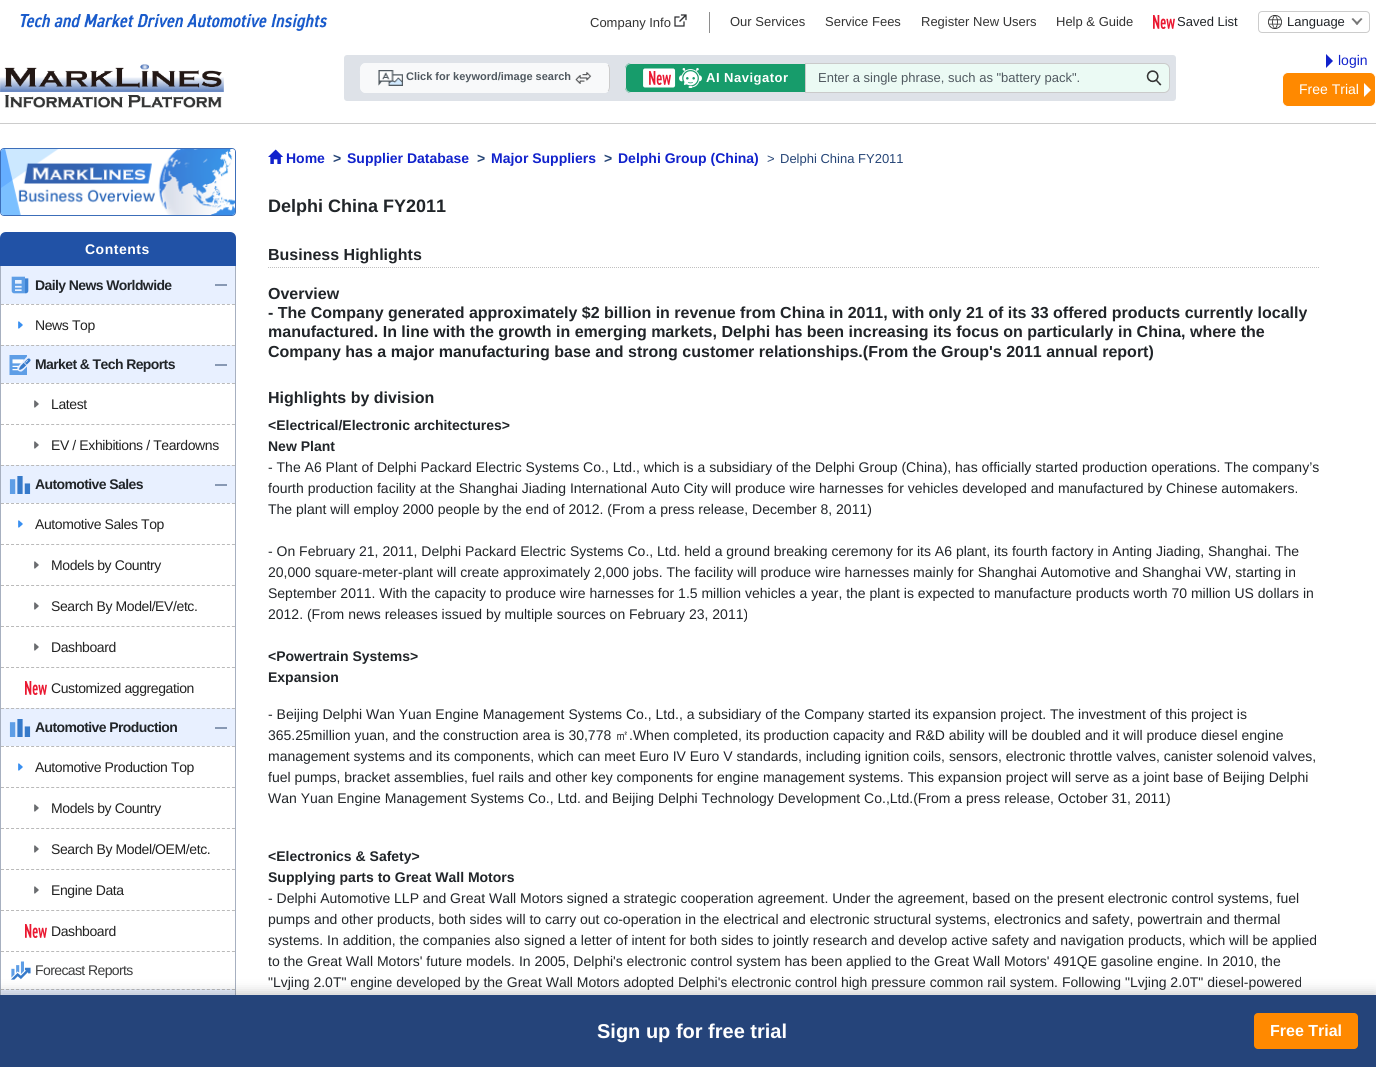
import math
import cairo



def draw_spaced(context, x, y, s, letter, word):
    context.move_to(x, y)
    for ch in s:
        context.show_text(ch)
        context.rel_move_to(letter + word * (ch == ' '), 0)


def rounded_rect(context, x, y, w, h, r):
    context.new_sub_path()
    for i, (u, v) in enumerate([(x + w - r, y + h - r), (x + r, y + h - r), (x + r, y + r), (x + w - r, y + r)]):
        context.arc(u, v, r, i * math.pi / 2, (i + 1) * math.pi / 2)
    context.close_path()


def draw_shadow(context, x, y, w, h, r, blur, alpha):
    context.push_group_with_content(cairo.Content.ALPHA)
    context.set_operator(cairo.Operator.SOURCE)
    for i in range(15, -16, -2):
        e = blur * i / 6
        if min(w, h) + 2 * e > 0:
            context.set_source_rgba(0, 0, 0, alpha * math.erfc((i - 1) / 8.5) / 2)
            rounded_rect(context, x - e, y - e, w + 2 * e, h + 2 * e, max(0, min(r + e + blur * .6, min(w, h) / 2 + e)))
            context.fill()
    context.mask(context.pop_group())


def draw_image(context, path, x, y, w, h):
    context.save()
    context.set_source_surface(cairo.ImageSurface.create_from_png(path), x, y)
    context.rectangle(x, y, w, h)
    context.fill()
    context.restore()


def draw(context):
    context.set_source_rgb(1, 1, 1)
    context.paint()
    context.set_source_rgb(204 / 255, 204 / 255, 204 / 255)
    context.rectangle(0, 123, 1376, 1)
    context.fill()
    draw_image(context, "images/1.png", 20, 14, 308, 17)
    draw_image(context, "images/2.png", 0, 64, 224, 44)
    context.set_source_rgb(142 / 255, 142 / 255, 142 / 255)
    context.rectangle(709, 12, 1, 21)
    context.fill()
    draw_image(context, "images/3.png", 674, 14, 13, 13)
    draw_image(context, "images/4.png", 1153, 15, 22, 14)
    rounded_rect(context, 1258.5, 11.5, 111, 21, 3.5)
    context.set_source_rgb(204 / 255, 204 / 255, 204 / 255)
    context.set_line_width(1)
    context.stroke()
    draw_image(context, "images/5.png", 1268, 15, 14, 14)
    context.set_source_rgb(119 / 255, 119 / 255, 119 / 255)
    context.new_path()
    context.move_to(1362.5, 19)
    context.line_to(1357, 25)
    context.line_to(1355.5, 23.5)
    context.line_to(1361, 18)
    context.close_path()
    context.fill()
    context.new_path()
    context.move_to(1358.5, 23.5)
    context.line_to(1357, 25)
    context.line_to(1351.5, 19)
    context.line_to(1353, 18)
    context.close_path()
    context.fill()
    context.set_source_rgb(222 / 255, 226 / 255, 232 / 255)
    rounded_rect(context, 344, 55, 832, 46, 3)
    context.fill()
    context.set_source_rgb(248 / 255, 249 / 255, 250 / 255)
    rounded_rect(context, 360, 63, 250, 30, 6)
    context.fill()
    context.new_path()
    context.move_to(608, 65)
    context.curve_to(609, 66, 609.5, 67.5, 609.5, 69)
    context.line_to(609.5, 87)
    context.curve_to(609.5, 88.5, 609, 90, 608, 91)
    context.set_source_rgb(204 / 255, 204 / 255, 204 / 255)
    context.stroke()
    context.new_path()
    context.move_to(608, 91)
    context.line_to(605, 92.5)
    context.line_to(366, 92.5)
    context.curve_to(361, 92.5, 360.5, 88, 360.5, 84)
    context.line_to(360.5, 75)
    context.curve_to(360.5, 71, 359.5, 63.5, 366, 63.5)
    context.line_to(604, 63.5)
    context.curve_to(605.5, 63.5, 607, 64, 608, 65)
    context.set_source_rgb(248 / 255, 249 / 255, 250 / 255)
    context.stroke()
    draw_image(context, "images/6.png", 378, 70, 25, 16)
    draw_image(context, "images/7.png", 575, 72, 17, 12)
    context.set_source_rgb(23 / 255, 156 / 255, 107 / 255)
    context.new_path()
    context.move_to(631, 63)
    context.line_to(805, 63)
    context.line_to(805, 93)
    context.line_to(631, 93)
    context.curve_to(627.5, 93, 625, 90.5, 625, 87)
    context.line_to(625, 69)
    context.curve_to(625, 65.5, 627.5, 63, 631, 63)
    context.close_path()
    context.fill()
    context.set_source_rgb(222 / 255, 226 / 255, 230 / 255)
    context.set_fill_rule(cairo.FillRule.EVEN_ODD)
    context.new_path()
    context.move_to(631, 63)
    context.line_to(805, 63)
    context.line_to(805, 93)
    context.line_to(631, 93)
    context.curve_to(628, 93, 625, 90, 625, 87)
    context.line_to(625, 69)
    context.curve_to(625, 66, 628, 63, 631, 63)
    context.close_path()
    context.move_to(631, 64)
    context.line_to(805, 64)
    context.line_to(805, 92)
    context.line_to(631, 92)
    context.curve_to(628, 92, 626, 90, 626, 87)
    context.line_to(626, 69)
    context.curve_to(626, 66, 628, 64, 631, 64)
    context.close_path()
    context.fill()
    draw_image(context, "images/8.png", 643, 68, 59, 20)
    context.set_source_rgb(235 / 255, 250 / 255, 244 / 255)
    context.new_path()
    context.move_to(1138.5, 63.5)
    context.line_to(1164, 63.5)
    context.curve_to(1167, 63.5, 1169.5, 66, 1169.5, 69)
    context.line_to(1169.5, 87)
    context.curve_to(1169.5, 90, 1167, 92.5, 1164, 92.5)
    context.line_to(1138.5, 92.5)
    context.close_path()
    context.fill_preserve()
    context.set_source_rgb(202 / 255, 202 / 255, 202 / 255)
    context.stroke()
    context.set_source_rgb(235 / 255, 250 / 255, 244 / 255)
    context.rectangle(806, 64, 333, 28)
    context.fill()
    context.set_source_rgb(202 / 255, 202 / 255, 202 / 255)
    context.rectangle(805, 63, 334, 1)
    context.fill()
    context.rectangle(805, 92, 334, 1)
    context.fill()
    context.rectangle(805, 63, 1, 30)
    context.fill()
    draw_image(context, "images/9.png", 1146, 70, 16, 16)
    context.set_source_rgb(17 / 255, 34 / 255, 204 / 255)
    context.set_fill_rule(cairo.FillRule.WINDING)
    context.new_path()
    context.move_to(1326, 68)
    context.line_to(1326, 54)
    context.line_to(1333, 61)
    context.close_path()
    context.fill()
    context.set_source_rgb(1, 137 / 255, 0)
    rounded_rect(context, 1282.5, 72.5, 93, 34, 5.5)
    context.fill_preserve()
    context.set_source_rgb(1, 1, 1)
    context.stroke()
    context.new_path()
    context.move_to(1364, 97)
    context.line_to(1364, 83)
    context.line_to(1371, 90)
    context.close_path()
    context.fill()
    rounded_rect(context, 0.5, 148.5, 235, 67, 3.5)
    context.set_source_rgb(60 / 255, 110 / 255, 185 / 255)
    context.stroke()
    draw_image(context, "images/10.png", 1, 149, 234, 66)
    context.set_source_rgb(33 / 255, 82 / 255, 166 / 255)
    context.new_path()
    context.move_to(6, 232)
    context.line_to(230, 232)
    context.curve_to(233.5, 232, 236, 234.5, 236, 238)
    context.line_to(236, 266)
    context.line_to(0, 266)
    context.line_to(0, 238)
    context.curve_to(0, 234.5, 2.5, 232, 6, 232)
    context.close_path()
    context.fill()
    context.set_source_rgb(167 / 255, 176 / 255, 192 / 255)
    context.set_fill_rule(cairo.FillRule.EVEN_ODD)
    context.new_path()
    context.move_to(0, 266)
    context.line_to(236, 266)
    context.line_to(236, 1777)
    context.curve_to(236, 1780, 233, 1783, 230, 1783)
    context.line_to(6, 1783)
    context.curve_to(3, 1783, 0, 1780, 0, 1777)
    context.close_path()
    context.move_to(1, 266)
    context.line_to(235, 266)
    context.line_to(235, 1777)
    context.curve_to(235, 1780, 233, 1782, 230, 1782)
    context.line_to(6, 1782)
    context.curve_to(3, 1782, 1, 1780, 1, 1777)
    context.close_path()
    context.fill()
    context.set_source_rgb(232 / 255, 240 / 255, 1)
    context.rectangle(1, 266, 234, 38)
    context.fill()
    draw_image(context, "images/11.png", 11, 276, 18, 18)
    context.set_source_rgb(136 / 255, 153 / 255, 180 / 255)
    context.rectangle(215, 284, 12, 2)
    context.fill()
    context.new_path()
    context.move_to(1, 304.5)
    context.line_to(235, 304.5)
    context.set_source_rgb(186 / 255, 186 / 255, 186 / 255)
    context.set_dash([3, 2.02])
    context.stroke()
    draw_image(context, "images/12.png", 18, 321, 5, 8)
    context.set_source_rgb(232 / 255, 240 / 255, 1)
    context.rectangle(1, 345, 234, 38)
    context.fill()
    context.new_path()
    context.move_to(1, 345.5)
    context.line_to(235, 345.5)
    context.set_source_rgb(186 / 255, 186 / 255, 186 / 255)
    context.stroke()
    draw_image(context, "images/13.png", 9, 355, 22, 20)
    context.set_source_rgb(136 / 255, 153 / 255, 180 / 255)
    context.rectangle(215, 364, 12, 2)
    context.fill()
    context.new_path()
    context.move_to(1, 383.5)
    context.line_to(235, 383.5)
    context.set_source_rgb(186 / 255, 186 / 255, 186 / 255)
    context.stroke()
    draw_image(context, "images/14.png", 34, 400, 5, 8)
    context.new_path()
    context.move_to(1, 424.5)
    context.line_to(235, 424.5)
    context.stroke()
    draw_image(context, "images/14.png", 34, 441, 5, 8)
    context.set_source_rgb(232 / 255, 240 / 255, 1)
    context.rectangle(1, 465, 234, 38)
    context.fill()
    context.new_path()
    context.move_to(1, 465.5)
    context.line_to(235, 465.5)
    context.set_source_rgb(186 / 255, 186 / 255, 186 / 255)
    context.stroke()
    draw_image(context, "images/15.png", 9, 476, 22, 18)
    context.set_source_rgb(136 / 255, 153 / 255, 180 / 255)
    context.rectangle(215, 484, 12, 2)
    context.fill()
    context.new_path()
    context.move_to(1, 503.5)
    context.line_to(235, 503.5)
    context.set_source_rgb(186 / 255, 186 / 255, 186 / 255)
    context.stroke()
    draw_image(context, "images/12.png", 18, 520, 5, 8)
    context.new_path()
    context.move_to(1, 544.5)
    context.line_to(235, 544.5)
    context.stroke()
    draw_image(context, "images/14.png", 34, 561, 5, 8)
    context.new_path()
    context.move_to(1, 585.5)
    context.line_to(235, 585.5)
    context.stroke()
    draw_image(context, "images/14.png", 34, 602, 5, 8)
    context.new_path()
    context.move_to(1, 626.5)
    context.line_to(235, 626.5)
    context.stroke()
    draw_image(context, "images/14.png", 34, 643, 5, 8)
    context.new_path()
    context.move_to(1, 667.5)
    context.line_to(235, 667.5)
    context.stroke()
    draw_image(context, "images/4.png", 25, 681, 22, 14)
    context.set_source_rgb(232 / 255, 240 / 255, 1)
    context.rectangle(1, 708, 234, 38)
    context.fill()
    context.new_path()
    context.move_to(1, 708.5)
    context.line_to(235, 708.5)
    context.set_source_rgb(186 / 255, 186 / 255, 186 / 255)
    context.stroke()
    draw_image(context, "images/15.png", 9, 719, 22, 18)
    context.set_source_rgb(136 / 255, 153 / 255, 180 / 255)
    context.rectangle(215, 727, 12, 2)
    context.fill()
    context.new_path()
    context.move_to(1, 746.5)
    context.line_to(235, 746.5)
    context.set_source_rgb(186 / 255, 186 / 255, 186 / 255)
    context.stroke()
    draw_image(context, "images/12.png", 18, 763, 5, 8)
    context.new_path()
    context.move_to(1, 787.5)
    context.line_to(235, 787.5)
    context.stroke()
    draw_image(context, "images/14.png", 34, 804, 5, 8)
    context.new_path()
    context.move_to(1, 828.5)
    context.line_to(235, 828.5)
    context.stroke()
    draw_image(context, "images/14.png", 34, 845, 5, 8)
    context.new_path()
    context.move_to(1, 869.5)
    context.line_to(235, 869.5)
    context.stroke()
    draw_image(context, "images/14.png", 34, 886, 5, 8)
    context.new_path()
    context.move_to(1, 910.5)
    context.line_to(235, 910.5)
    context.stroke()
    draw_image(context, "images/4.png", 25, 924, 22, 14)
    context.new_path()
    context.move_to(1, 951.5)
    context.line_to(235, 951.5)
    context.stroke()
    draw_image(context, "images/16.png", 11, 961, 20, 19)
    context.set_source_rgb(232 / 255, 240 / 255, 1)
    context.rectangle(1, 989, 234, 6)
    context.fill()
    context.new_path()
    context.move_to(1, 989.5)
    context.line_to(235, 989.5)
    context.set_source_rgb(186 / 255, 186 / 255, 186 / 255)
    context.stroke()
    draw_image(context, "images/17.png", 268, 149, 15, 15)
    context.new_path()
    context.move_to(268, 267.5)
    context.line_to(1320, 267.5)
    context.set_source_rgb(192 / 255, 192 / 255, 192 / 255)
    context.set_dash([1, 1])
    context.stroke()
    context.set_source_rgb(0, 0, 0)
    draw_shadow(context, 0, 992, 1376, 72, 0, 6, 0.2)
    context.set_source_rgb(37 / 255, 68 / 255, 122 / 255)
    context.rectangle(0, 995, 1376, 72)
    context.fill()
    context.set_source_rgb(1, 137 / 255, 0)
    rounded_rect(context, 1253, 1012, 106, 38, 5)
    context.fill_preserve()
    context.set_source_rgb(37 / 255, 68 / 255, 122 / 255)
    context.set_line_width(2)
    context.set_dash([])
    context.stroke()
    context.select_font_face("Liberation Sans")
    context.set_font_size(13)
    context.set_source_rgb(51 / 255, 51 / 255, 51 / 255)
    context.move_to(590, 27)
    context.show_text("Company Info")
    context.move_to(730, 26)
    context.show_text("Our Services")
    context.move_to(825, 26)
    context.show_text("Service Fees")
    context.move_to(921, 26)
    context.show_text("Register New Users")
    context.move_to(1056, 26)
    context.show_text("Help & Guide")
    context.set_source_rgb(33 / 255, 37 / 255, 41 / 255)
    context.move_to(1177, 26)
    context.show_text("Saved List")
    context.move_to(1287, 26)
    context.show_text("Language")
    context.select_font_face("Liberation Sans", cairo.FontSlant.NORMAL, cairo.FontWeight.BOLD)
    context.set_font_size(11)
    context.set_source_rgb(80 / 255, 89 / 255, 96 / 255)
    context.move_to(406, 80)
    context.show_text("Click for keyword/image search")
    context.set_font_size(13)
    context.set_source_rgb(1, 1, 1)
    draw_spaced(context, 706, 82, "AI Navigator", 0.5, 0)
    context.select_font_face("Liberation Sans")
    context.set_source_rgb(80 / 255, 89 / 255, 96 / 255)
    context.move_to(818, 82)
    context.show_text("Enter a single phrase, such as \"battery pack\".")
    context.set_font_size(14)
    context.set_source_rgb(17 / 255, 34 / 255, 204 / 255)
    context.move_to(1338, 65)
    context.show_text("login")
    context.set_source_rgb(1, 1, 1)
    context.move_to(1299, 94)
    context.show_text("Free Trial")
    context.select_font_face("Liberation Sans", cairo.FontSlant.NORMAL, cairo.FontWeight.BOLD)
    draw_spaced(context, 85, 254, "Contents", 0.5, 0)
    context.set_source_rgb(33 / 255, 37 / 255, 41 / 255)
    draw_spaced(context, 35, 290, "Daily News Worldwide", -0.6, 0)
    context.select_font_face("Liberation Sans")
    context.set_source_rgb(34 / 255, 34 / 255, 34 / 255)
    draw_spaced(context, 35, 330, "News Top", -0.4, 0)
    context.select_font_face("Liberation Sans", cairo.FontSlant.NORMAL, cairo.FontWeight.BOLD)
    context.set_source_rgb(33 / 255, 37 / 255, 41 / 255)
    draw_spaced(context, 35, 369, "Market & Tech Reports", -0.6, 0)
    context.select_font_face("Liberation Sans")
    context.set_source_rgb(34 / 255, 34 / 255, 34 / 255)
    draw_spaced(context, 51, 409, "Latest", -0.4, 0)
    draw_spaced(context, 51, 450, "EV / Exhibitions / Teardowns", -0.4, 0)
    context.select_font_face("Liberation Sans", cairo.FontSlant.NORMAL, cairo.FontWeight.BOLD)
    context.set_source_rgb(33 / 255, 37 / 255, 41 / 255)
    draw_spaced(context, 35, 489, "Automotive Sales", -0.6, 0)
    context.select_font_face("Liberation Sans")
    context.set_source_rgb(34 / 255, 34 / 255, 34 / 255)
    draw_spaced(context, 35, 529, "Automotive Sales Top", -0.4, 0)
    draw_spaced(context, 51, 570, "Models by Country", -0.4, 0)
    draw_spaced(context, 51, 611, "Search By Model/EV/etc.", -0.4, 0)
    draw_spaced(context, 51, 652, "Dashboard", -0.4, 0)
    draw_spaced(context, 51, 693, "Customized aggregation", -0.4, 0)
    context.select_font_face("Liberation Sans", cairo.FontSlant.NORMAL, cairo.FontWeight.BOLD)
    context.set_source_rgb(33 / 255, 37 / 255, 41 / 255)
    draw_spaced(context, 35, 732, "Automotive Production", -0.6, 0)
    context.select_font_face("Liberation Sans")
    context.set_source_rgb(34 / 255, 34 / 255, 34 / 255)
    draw_spaced(context, 35, 772, "Automotive Production Top", -0.4, 0)
    draw_spaced(context, 51, 813, "Models by Country", -0.4, 0)
    draw_spaced(context, 51, 854, "Search By Model/OEM/etc.", -0.4, 0)
    draw_spaced(context, 51, 895, "Engine Data", -0.4, 0)
    draw_spaced(context, 51, 936, "Dashboard", -0.4, 0)
    context.set_source_rgb(59 / 255, 60 / 255, 61 / 255)
    draw_spaced(context, 35, 975, "Forecast Reports", -0.6, 0)
    context.select_font_face("Liberation Sans", cairo.FontSlant.NORMAL, cairo.FontWeight.BOLD)
    context.set_source_rgb(17 / 255, 34 / 255, 204 / 255)
    context.move_to(286, 163)
    context.show_text("Home")
    context.set_source_rgb(39 / 255, 70 / 255, 119 / 255)
    context.move_to(333, 163)
    context.show_text(">")
    context.set_source_rgb(17 / 255, 34 / 255, 204 / 255)
    context.move_to(347, 163)
    context.show_text("Supplier Database")
    context.set_source_rgb(39 / 255, 70 / 255, 119 / 255)
    context.move_to(477, 163)
    context.show_text(">")
    context.set_source_rgb(17 / 255, 34 / 255, 204 / 255)
    context.move_to(491, 163)
    context.show_text("Major Suppliers")
    context.set_source_rgb(39 / 255, 70 / 255, 119 / 255)
    context.move_to(604, 163)
    context.show_text(">")
    context.set_source_rgb(17 / 255, 34 / 255, 204 / 255)
    context.move_to(618, 163)
    context.show_text("Delphi Group (China)")
    context.select_font_face("Liberation Sans")
    context.set_font_size(13)
    context.set_source_rgb(39 / 255, 70 / 255, 119 / 255)
    context.move_to(767, 163)
    context.show_text(">")
    context.move_to(780, 163)
    context.show_text("Delphi China FY2011")
    context.select_font_face("Liberation Sans", cairo.FontSlant.NORMAL, cairo.FontWeight.BOLD)
    context.set_font_size(18)
    context.set_source_rgb(33 / 255, 37 / 255, 41 / 255)
    context.move_to(268, 212)
    context.show_text("Delphi China FY2011")
    context.set_font_size(16)
    context.move_to(268, 260)
    context.show_text("Business Highlights")
    context.move_to(268, 299)
    context.show_text("Overview")
    context.move_to(268, 318)
    context.show_text("- The Company generated approximately $2 billion in revenue from China in 2011, with only 21 of its 33 offered products currently locally")
    context.move_to(268, 337)
    context.show_text("manufactured. In line with the growth in emerging markets, Delphi has been increasing its focus on particularly in China, where the")
    context.move_to(268, 357)
    context.show_text("Company has a major manufacturing base and strong customer relationships.(From the Group's 2011 annual report)")
    context.move_to(268, 403)
    context.show_text("Highlights by division")
    context.set_font_size(14)
    context.move_to(268, 430)
    context.show_text("<Electrical/Electronic architectures>")
    context.move_to(268, 451)
    context.show_text("New Plant")
    context.select_font_face("Liberation Sans")
    context.move_to(268, 472)
    context.show_text("- The A6 Plant of Delphi Packard Electric Systems Co., Ltd., which is a subsidiary of the Delphi Group (China), has officially started production operations. The company’s")
    context.move_to(268, 493)
    context.show_text("fourth production facility at the Shanghai Jiading International Auto City will produce wire harnesses for vehicles developed and manufactured by Chinese automakers.")
    context.move_to(268, 514)
    context.show_text("The plant will employ 2000 people by the end of 2012. (From a press release, December 8, 2011)")
    context.move_to(268, 556)
    context.show_text("- On February 21, 2011, Delphi Packard Electric Systems Co., Ltd. held a ground breaking ceremony for its A6 plant, its fourth factory in Anting Jiading, Shanghai. The")
    context.move_to(268, 577)
    context.show_text("20,000 square-meter-plant will create approximately 2,000 jobs. The facility will produce wire harnesses mainly for Shanghai Automotive and Shanghai VW, starting in")
    context.move_to(268, 598)
    context.show_text("September 2011. With the capacity to produce wire harnesses for 1.5 million vehicles a year, the plant is expected to manufacture products worth 70 million US dollars in")
    context.move_to(268, 619)
    context.show_text("2012. (From news releases issued by multiple sources on February 23, 2011)")
    context.select_font_face("Liberation Sans", cairo.FontSlant.NORMAL, cairo.FontWeight.BOLD)
    context.move_to(268, 661)
    context.show_text("<Powertrain Systems>")
    context.move_to(268, 682)
    context.show_text("Expansion")
    context.select_font_face("Liberation Sans")
    context.move_to(268, 719)
    context.show_text("- Beijing Delphi Wan Yuan Engine Management Systems Co., Ltd., a subsidiary of the Company started its expansion project. The investment of this project is")
    context.move_to(268, 740)
    context.show_text("365.25million yuan, and the construction area is 30,778")
    context.select_font_face("WenQuanYi Zen Hei Medium")
    context.move_to(615, 740)
    context.show_text("㎡")
    context.select_font_face("Liberation Sans")
    context.move_to(629, 740)
    context.show_text(".When completed, its production capacity and R&D ability will be doubled and it will produce diesel engine")
    context.move_to(268, 761)
    context.show_text("management systems and its components, which can meet Euro IV Euro V standards, including ignition coils, sensors, electronic throttle valves, canister solenoid valves,")
    context.move_to(268, 782)
    context.show_text("fuel pumps, bracket assemblies, fuel rails and other key components for engine management systems. This expansion project will serve as a joint base of Beijing Delphi")
    context.move_to(268, 803)
    context.show_text("Wan Yuan Engine Management Systems Co., Ltd. and Beijing Delphi Technology Development Co.,Ltd.(From a press release, October 31, 2011)")
    context.select_font_face("Liberation Sans", cairo.FontSlant.NORMAL, cairo.FontWeight.BOLD)
    context.move_to(268, 861)
    context.show_text("<Electronics & Safety>")
    context.move_to(268, 882)
    context.show_text("Supplying parts to Great Wall Motors")
    context.select_font_face("Liberation Sans")
    context.move_to(268, 903)
    context.show_text("- Delphi Automotive LLP and Great Wall Motors signed a strategic cooperation agreement. Under the agreement, based on the present electronic control systems, fuel")
    context.move_to(268, 924)
    context.show_text("pumps and other products, both sides will to carry out co-operation in the electrical and electronic structural systems, electronics and safety, powertrain and thermal")
    context.move_to(268, 945)
    context.show_text("systems. In addition, the companies also signed a letter of intent for both sides to jointly research and develop active safety and navigation products, which will be applied")
    context.move_to(268, 966)
    context.show_text("to the Great Wall Motors' future models. In 2005, Delphi's electronic control system has been applied to the Great Wall Motors' 491QE gasoline engine. In 2010, the")
    context.move_to(268, 987)
    context.show_text("\"Lvjing 2.0T\" engine developed by the Great Wall Motors adopted Delphi's electronic control high pressure common rail system. Following \"Lvjing 2.0T\" diesel-powered")
    context.select_font_face("Liberation Sans", cairo.FontSlant.NORMAL, cairo.FontWeight.BOLD)
    context.set_font_size(20)
    context.set_source_rgb(1, 1, 1)
    context.move_to(597, 1038)
    context.show_text("Sign up for free trial")
    context.set_font_size(16)
    context.move_to(1270, 1036)
    context.show_text("Free Trial")


surface = cairo.ImageSurface(cairo.Format.RGB24, 1376, 1067)
context = cairo.Context(surface)
options = cairo.FontOptions()
options.set_hint_metrics(cairo.HintMetrics.OFF)
options.set_hint_style(cairo.HintStyle.NONE)
context.set_font_options(options)
context.set_miter_limit(4)
draw(context)
surface.write_to_png("out.png")
